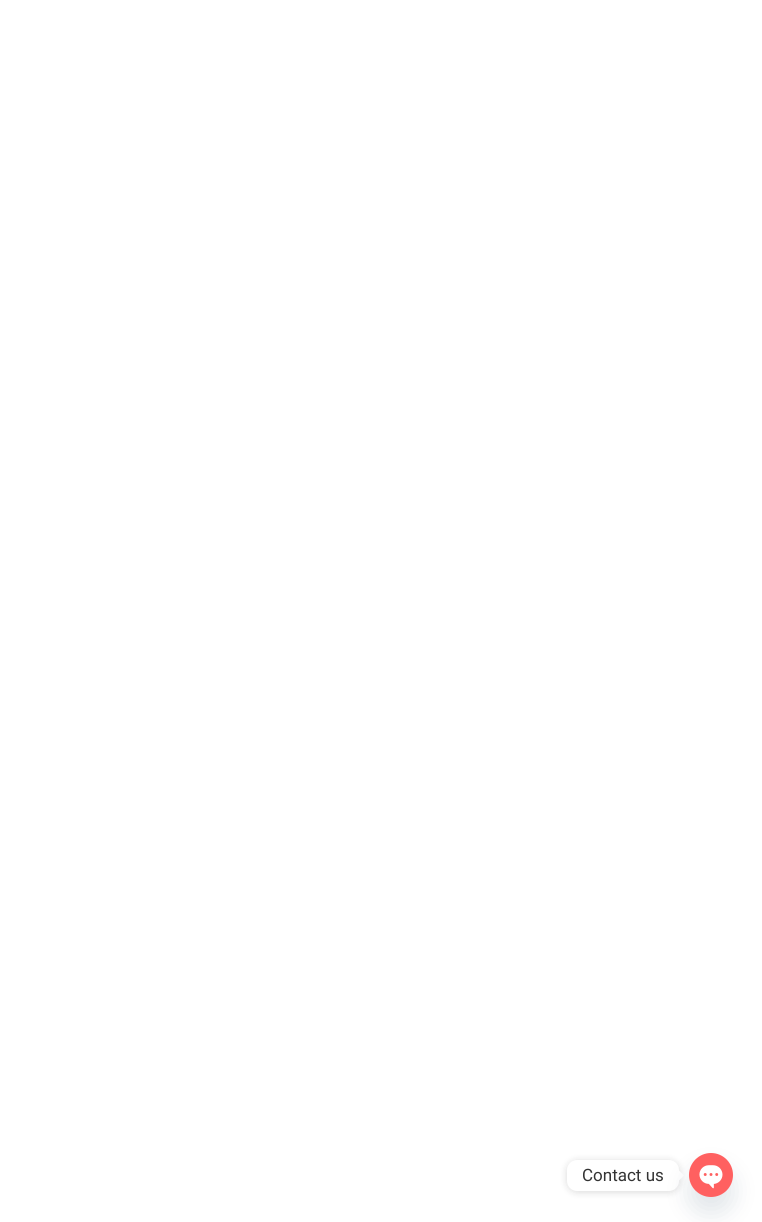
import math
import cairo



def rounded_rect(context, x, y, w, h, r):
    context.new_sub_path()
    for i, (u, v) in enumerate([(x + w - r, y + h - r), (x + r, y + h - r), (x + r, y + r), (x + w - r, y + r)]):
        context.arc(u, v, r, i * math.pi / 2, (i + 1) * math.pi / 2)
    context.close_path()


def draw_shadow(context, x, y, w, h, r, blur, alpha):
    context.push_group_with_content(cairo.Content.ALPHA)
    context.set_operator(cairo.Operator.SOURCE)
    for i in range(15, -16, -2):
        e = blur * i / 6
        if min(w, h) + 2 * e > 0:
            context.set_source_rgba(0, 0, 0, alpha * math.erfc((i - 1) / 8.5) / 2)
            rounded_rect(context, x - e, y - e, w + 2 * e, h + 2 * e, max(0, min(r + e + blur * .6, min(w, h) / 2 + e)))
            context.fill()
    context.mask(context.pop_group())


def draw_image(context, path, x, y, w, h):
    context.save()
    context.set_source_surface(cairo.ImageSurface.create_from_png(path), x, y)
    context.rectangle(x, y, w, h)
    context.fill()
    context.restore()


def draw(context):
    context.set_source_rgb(1, 1, 1)
    context.paint()
    context.set_source_rgb(0, 0, 0)
    draw_shadow(context, 567, 1161, 112, 31, 10, 4, 0.15)
    context.set_source_rgb(1, 1, 1)
    rounded_rect(context, 567, 1160, 112, 31, 10)
    context.fill()
    context.new_path()
    context.move_to(679, 1180.5)
    context.line_to(679, 1170.5)
    context.line_to(684, 1175.5)
    context.close_path()
    context.fill()
    context.set_source_rgb(73 / 255, 104 / 255, 126 / 255)
    draw_shadow(context, 689, 1169, 44, 44, 22, 12, 0.16)
    draw_image(context, "images/1.png", 689, 1153, 44, 44)
    context.select_font_face("Roboto")
    context.set_font_size(17)
    context.set_source_rgb(51 / 255, 51 / 255, 51 / 255)
    context.move_to(582, 1181)
    context.show_text("Contact us")


surface = cairo.ImageSurface(cairo.Format.RGB24, 762, 1222)
context = cairo.Context(surface)
options = cairo.FontOptions()
options.set_hint_metrics(cairo.HintMetrics.OFF)
options.set_hint_style(cairo.HintStyle.NONE)
context.set_font_options(options)
context.set_miter_limit(4)
draw(context)
surface.write_to_png("out.png")
